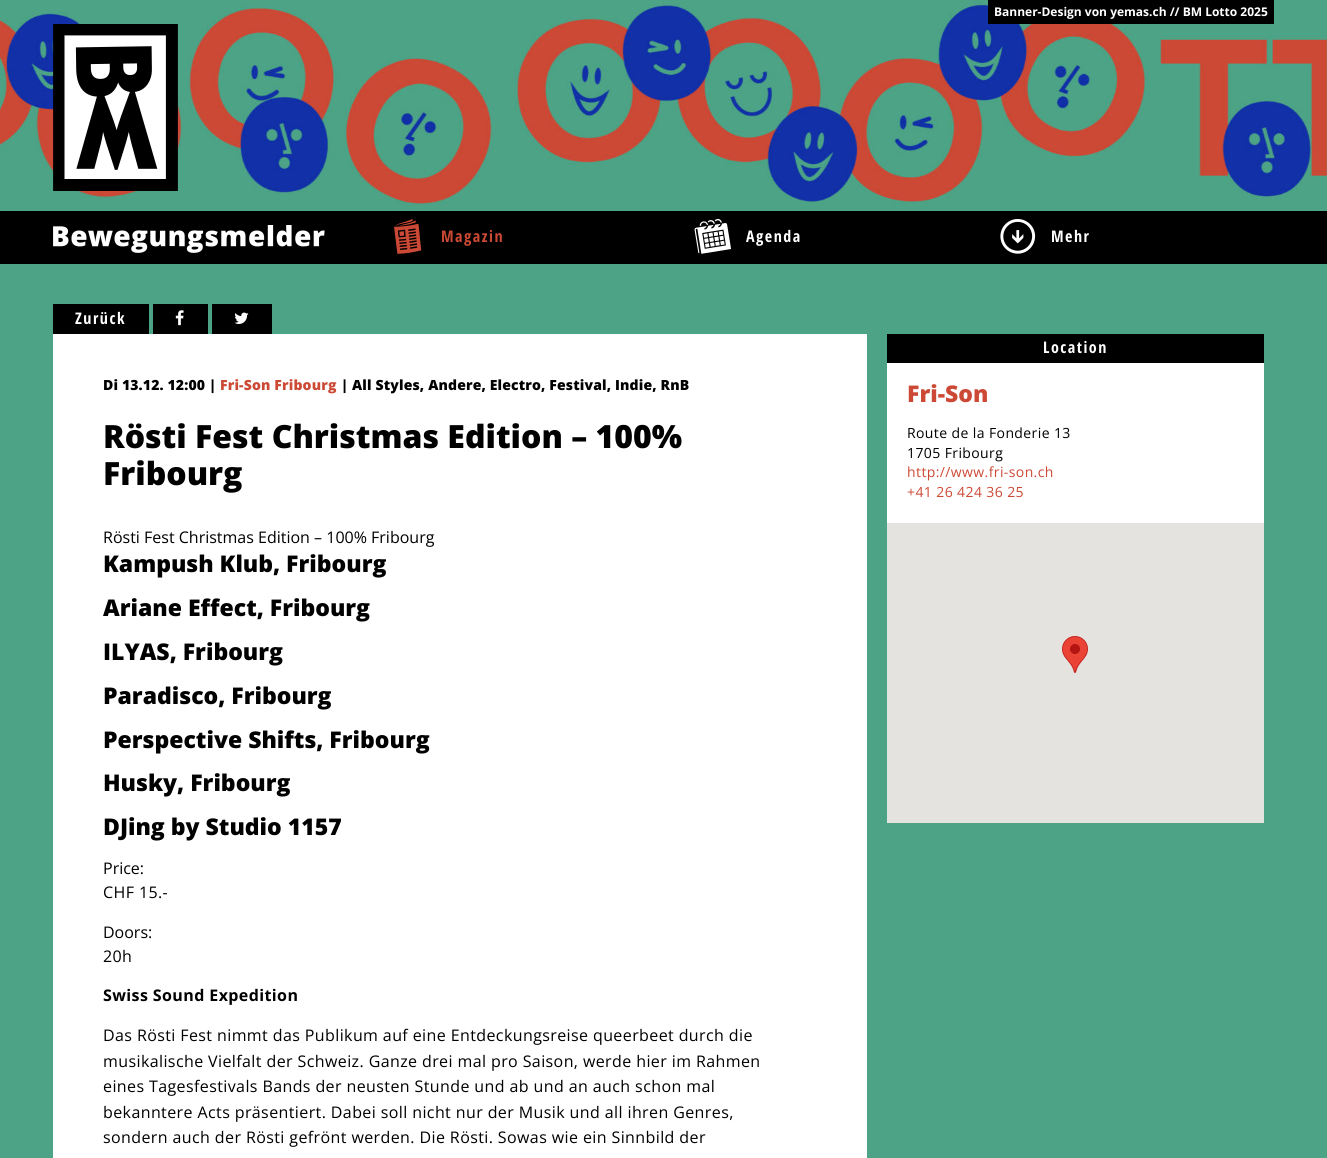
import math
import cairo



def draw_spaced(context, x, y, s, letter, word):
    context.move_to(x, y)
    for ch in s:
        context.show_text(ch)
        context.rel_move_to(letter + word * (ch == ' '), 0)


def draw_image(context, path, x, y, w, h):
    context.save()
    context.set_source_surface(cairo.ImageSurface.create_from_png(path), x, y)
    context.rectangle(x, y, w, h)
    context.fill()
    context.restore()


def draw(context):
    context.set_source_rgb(77 / 255, 163 / 255, 134 / 255)
    context.paint()
    draw_image(context, "images/1.png", 0, 0, 1327, 211)
    context.set_source_rgb(0, 0, 0)
    context.rectangle(988, 0, 286, 24)
    context.fill()
    draw_image(context, "images/2.png", 53, 24, 125, 167)
    context.rectangle(0, 211, 1327, 53)
    context.fill()
    draw_image(context, "images/3.png", 53, 225, 272, 28)
    draw_image(context, "images/4.png", 394, 219, 28, 35)
    draw_image(context, "images/5.png", 694, 219, 37, 35)
    draw_image(context, "images/6.png", 1000, 219, 36, 35)
    context.rectangle(53, 304, 96, 30)
    context.fill()
    context.rectangle(153, 304, 55, 30)
    context.fill()
    draw_image(context, "images/7.png", 175, 310, 9, 16)
    context.rectangle(212, 304, 60, 30)
    context.fill()
    draw_image(context, "images/8.png", 234, 312, 15, 12)
    context.set_source_rgb(1, 1, 1)
    context.rectangle(53, 334, 814, 824)
    context.fill()
    context.rectangle(887, 363, 377, 160)
    context.fill()
    context.set_source_rgb(0, 0, 0)
    context.rectangle(887, 334, 377, 29)
    context.fill()
    context.set_source_rgb(229 / 255, 227 / 255, 223 / 255)
    context.rectangle(887, 523, 377, 300)
    context.fill()
    draw_image(context, "images/9.png", 1062, 636, 26, 37)
    context.select_font_face("Open Sans", cairo.FontSlant.NORMAL, cairo.FontWeight.BOLD)
    context.set_font_size(12)
    context.set_source_rgb(1, 1, 1)
    context.move_to(994, 16)
    context.show_text("Banner-Design von yemas.ch // BM Lotto 2025")
    context.select_font_face("Open Sans Condensed", cairo.FontSlant.NORMAL, cairo.FontWeight.BOLD)
    context.set_font_size(16)
    context.set_source_rgb(204 / 255, 73 / 255, 53 / 255)
    draw_spaced(context, 441, 242, "Magazin", 1.5, 0)
    context.set_source_rgb(1, 1, 1)
    draw_spaced(context, 746, 242, "Agenda", 1.5, 0)
    draw_spaced(context, 1051, 242, "Mehr", 1.5, 0)
    draw_spaced(context, 75, 324, "Zurück", 1.5, 0)
    context.select_font_face("Open Sans ExtraBold")
    context.set_font_size(14)
    context.set_source_rgb(0, 0, 0)
    draw_spaced(context, 103, 390, "Di 13.12. 12:00 |", 0.15, 0)
    context.set_source_rgb(204 / 255, 73 / 255, 53 / 255)
    draw_spaced(context, 220, 390, "Fri-Son Fribourg", 0.15, 0)
    context.set_source_rgb(0, 0, 0)
    draw_spaced(context, 341, 390, "| All Styles, Andere, Electro, Festival, Indie, RnB", 0.15, 0)
    context.set_font_size(32)
    context.move_to(103, 448)
    context.show_text("Rösti Fest Christmas Edition – 100%")
    context.move_to(103, 485)
    context.show_text("Fribourg")
    context.select_font_face("Open Sans")
    context.set_font_size(16)
    context.move_to(103, 543)
    context.show_text("Rösti Fest Christmas Edition – 100% Fribourg")
    context.select_font_face("Open Sans ExtraBold")
    context.set_font_size(23)
    context.move_to(103, 572)
    context.show_text("Kampush Klub, Fribourg")
    context.move_to(103, 616)
    context.show_text("Ariane Effect, Fribourg")
    context.move_to(103, 660)
    context.show_text("ILYAS, Fribourg")
    context.move_to(103, 704)
    context.show_text("Paradisco, Fribourg")
    context.move_to(103, 748)
    context.show_text("Perspective Shifts, Fribourg")
    context.move_to(103, 791)
    context.show_text("Husky, Fribourg")
    context.move_to(103, 835)
    context.show_text("DJing by Studio 1157")
    context.select_font_face("Open Sans")
    context.set_font_size(16)
    context.move_to(103, 874)
    context.show_text("Price:")
    draw_spaced(context, 103, 898, "CHF 15.-", 0.4, 0)
    context.move_to(103, 938)
    context.show_text("Doors:")
    draw_spaced(context, 103, 962, "20h", 0.4, 0)
    context.select_font_face("Open Sans", cairo.FontSlant.NORMAL, cairo.FontWeight.BOLD)
    draw_spaced(context, 103, 1001, "Swiss Sound Expedition", 0.4, 0)
    context.select_font_face("Open Sans")
    draw_spaced(context, 103, 1041, "Das Rösti Fest nimmt das Publikum auf eine Entdeckungsreise queerbeet durch die", 0.4, 0)
    draw_spaced(context, 103, 1067, "musikalische Vielfalt der Schweiz. Ganze drei mal pro Saison, werde hier im Rahmen", 0.4, 0)
    draw_spaced(context, 103, 1092, "eines Tagesfestivals Bands der neusten Stunde und ab und an auch schon mal", 0.4, 0)
    draw_spaced(context, 103, 1118, "bekanntere Acts präsentiert. Dabei soll nicht nur der Musik und all ihren Genres,", 0.4, 0)
    draw_spaced(context, 103, 1143, "sondern auch der Rösti gefrönt werden. Die Rösti. Sowas wie ein Sinnbild der", 0.4, 0)
    context.select_font_face("Open Sans Condensed", cairo.FontSlant.NORMAL, cairo.FontWeight.BOLD)
    context.set_source_rgb(1, 1, 1)
    draw_spaced(context, 1043, 353, "Location", 1.5, 0)
    context.select_font_face("Open Sans ExtraBold")
    context.set_font_size(23)
    context.set_source_rgb(204 / 255, 73 / 255, 53 / 255)
    context.move_to(907, 402)
    context.show_text("Fri-Son")
    context.select_font_face("Open Sans")
    context.set_font_size(14)
    context.set_source_rgb(0, 0, 0)
    draw_spaced(context, 907, 438, "Route de la Fonderie 13", 0.4, 0)
    draw_spaced(context, 907, 458, "1705 Fribourg", 0.4, 0)
    context.set_source_rgb(204 / 255, 73 / 255, 53 / 255)
    draw_spaced(context, 907, 477, "http://www.fri-son.ch", 0.4, 0)
    draw_spaced(context, 907, 497, "+41 26 424 36 25", 0.4, 0)


surface = cairo.ImageSurface(cairo.Format.RGB24, 1327, 1158)
context = cairo.Context(surface)
options = cairo.FontOptions()
options.set_hint_metrics(cairo.HintMetrics.OFF)
options.set_hint_style(cairo.HintStyle.NONE)
context.set_font_options(options)
context.set_miter_limit(4)
draw(context)
surface.write_to_png("out.png")
